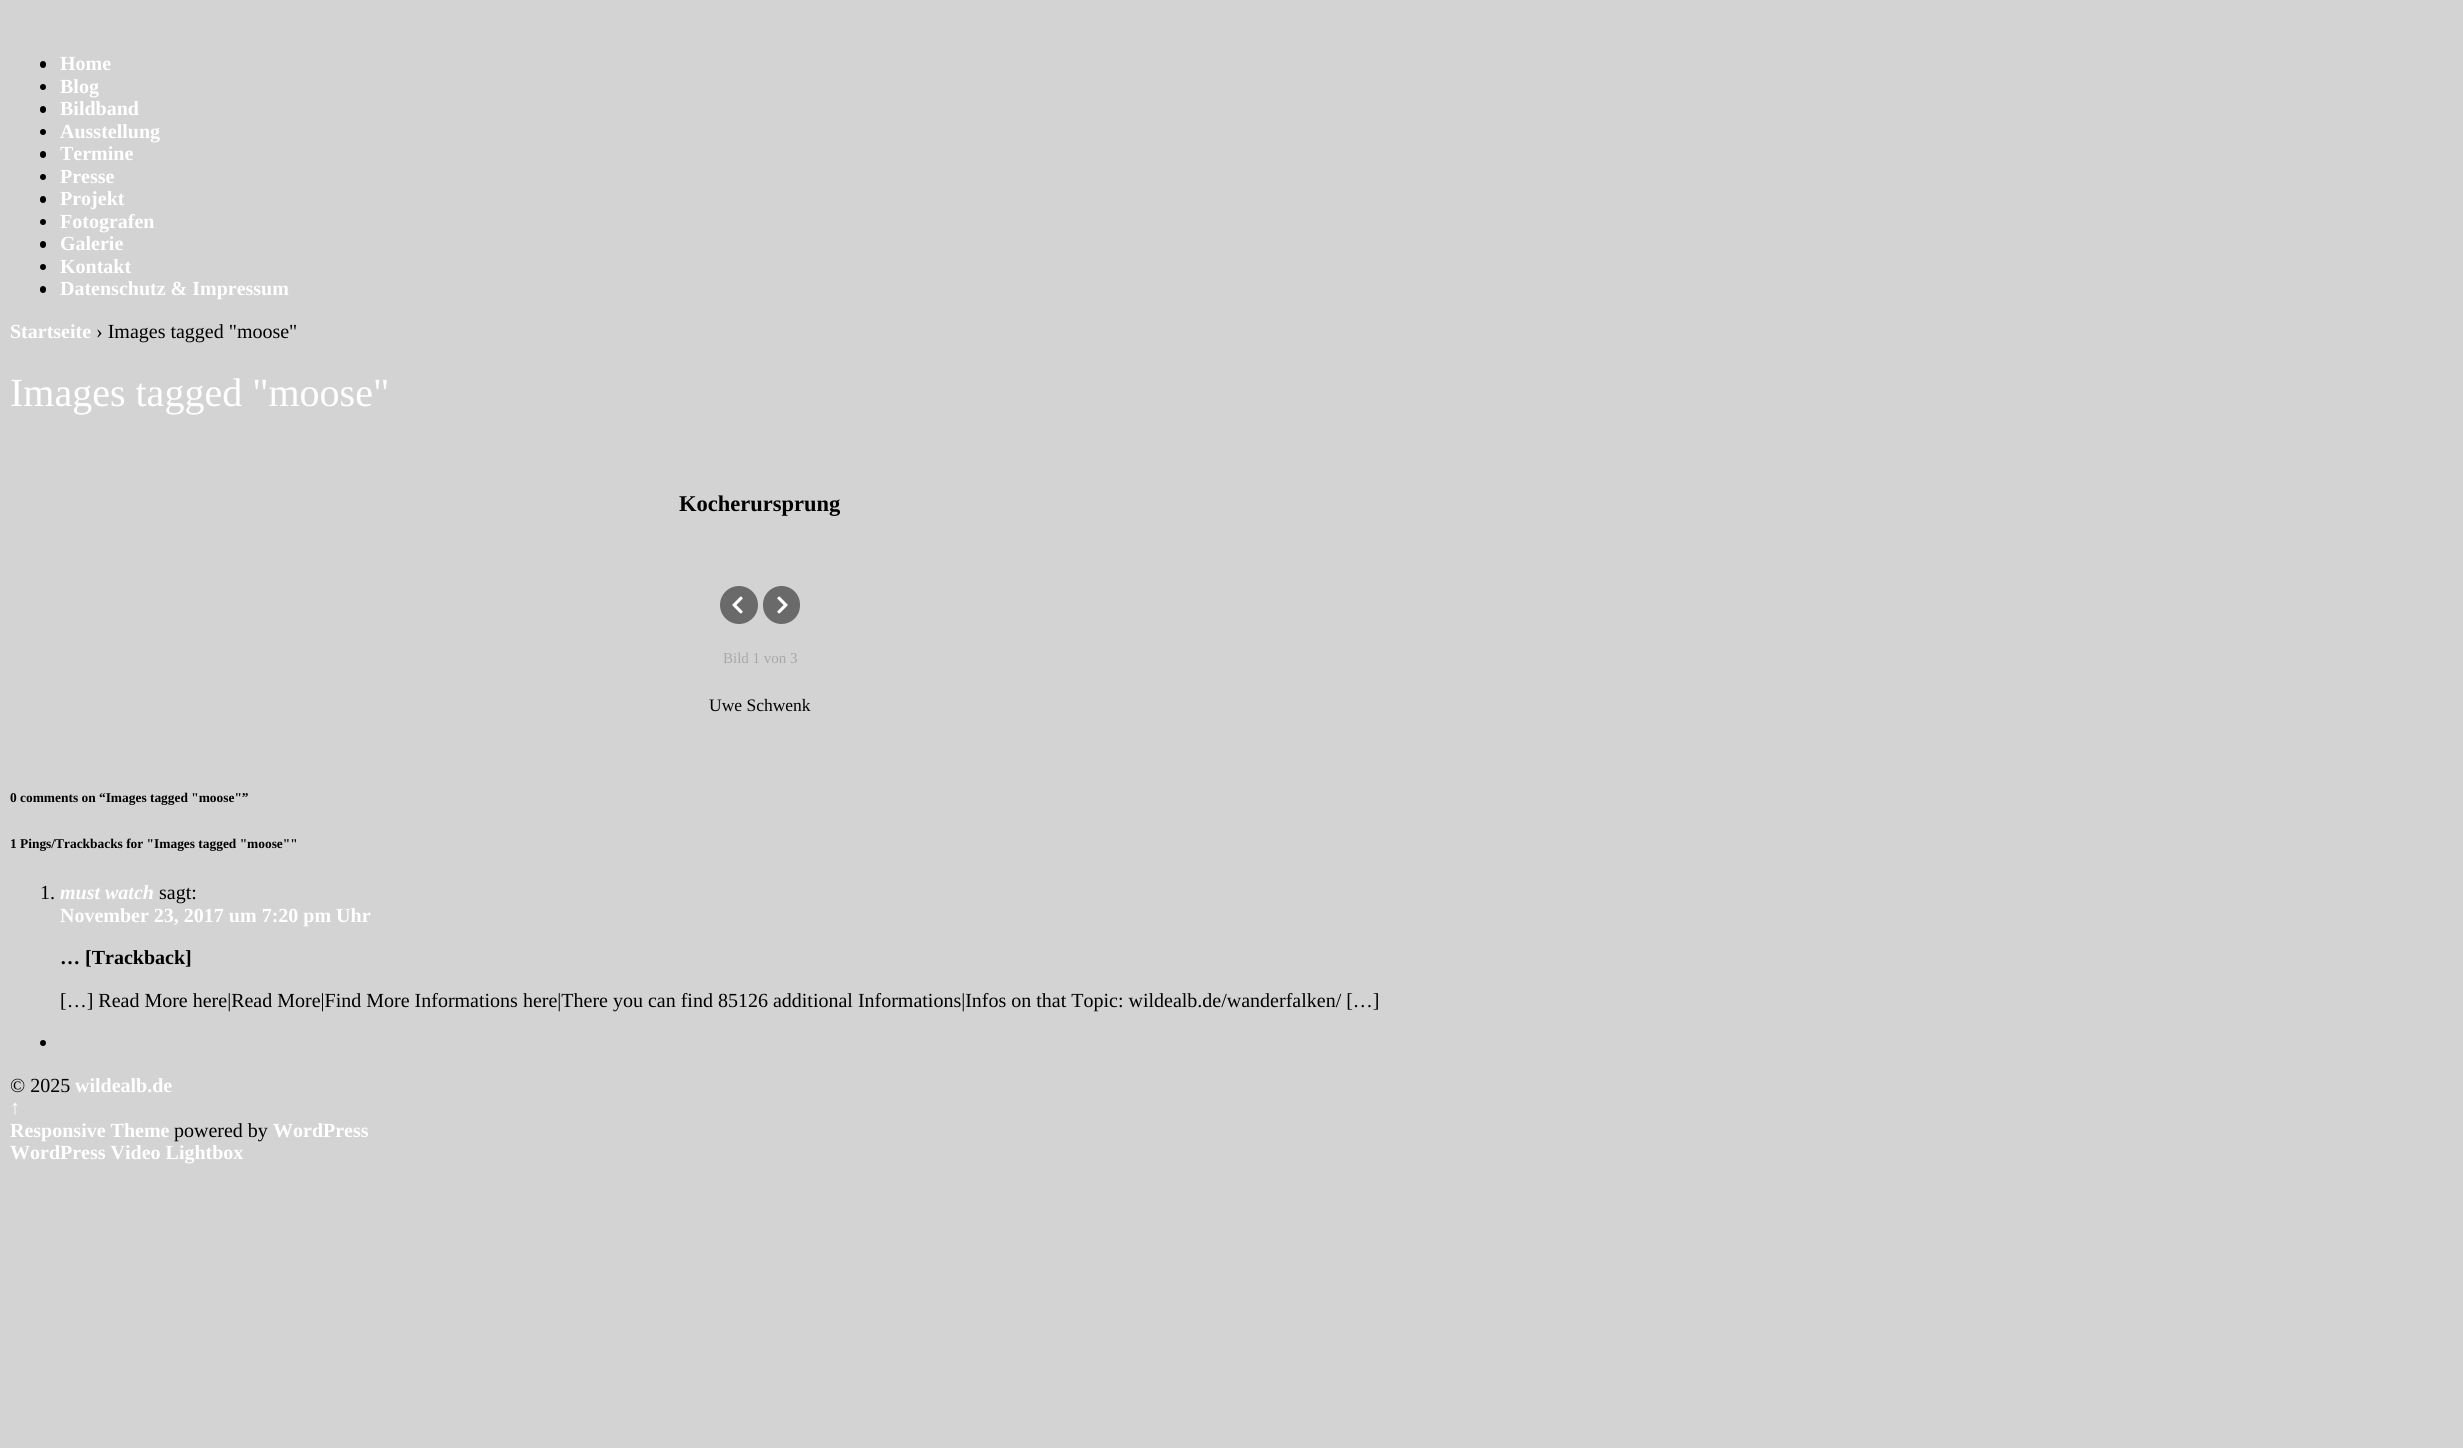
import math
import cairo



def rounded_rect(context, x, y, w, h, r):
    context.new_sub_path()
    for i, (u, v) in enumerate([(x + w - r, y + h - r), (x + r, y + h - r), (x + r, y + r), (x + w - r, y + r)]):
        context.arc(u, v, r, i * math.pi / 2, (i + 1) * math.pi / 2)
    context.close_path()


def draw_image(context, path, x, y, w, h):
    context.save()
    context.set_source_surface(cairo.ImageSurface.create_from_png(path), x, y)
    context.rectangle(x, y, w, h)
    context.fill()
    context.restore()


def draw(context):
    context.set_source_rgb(211 / 255, 211 / 255, 211 / 255)
    context.paint()
    context.set_source_rgb(0, 0, 0)
    rounded_rect(context, 40, 61, 6, 7, 3)
    context.fill()
    context.arc(43, 87, 3, 0, 2 * math.pi)
    context.fill()
    rounded_rect(context, 40, 106, 6, 7, 3)
    context.fill()
    context.arc(43, 132, 3, 0, 2 * math.pi)
    context.fill()
    rounded_rect(context, 40, 151, 6, 7, 3)
    context.fill()
    context.arc(43, 177, 3, 0, 2 * math.pi)
    context.fill()
    rounded_rect(context, 40, 196, 6, 7, 3)
    context.fill()
    context.arc(43, 222, 3, 0, 2 * math.pi)
    context.fill()
    rounded_rect(context, 40, 241, 6, 7, 3)
    context.fill()
    context.arc(43, 267, 3, 0, 2 * math.pi)
    context.fill()
    rounded_rect(context, 40, 286, 6, 7, 3)
    context.fill()
    context.set_source_rgb(106 / 255, 106 / 255, 106 / 255)
    context.arc(739, 605, 19, 0, 2 * math.pi)
    context.fill()
    draw_image(context, "images/1.png", 732, 596, 11, 18)
    rounded_rect(context, 763, 586, 37, 38, 18.5)
    context.fill()
    draw_image(context, "images/2.png", 777, 596, 11, 18)
    context.set_source_rgb(0, 0, 0)
    context.arc(43, 1043, 3, 0, 2 * math.pi)
    context.fill()
    context.select_font_face("Liberation Serif", cairo.FontSlant.NORMAL, cairo.FontWeight.BOLD)
    context.set_font_size(20)
    context.set_source_rgb(1, 1, 1)
    context.move_to(60, 70)
    context.show_text("Home")
    context.move_to(60, 93)
    context.show_text("Blog")
    context.move_to(60, 115)
    context.show_text("Bildband")
    context.move_to(60, 138)
    context.show_text("Ausstellung")
    context.move_to(60, 160)
    context.show_text("Termine")
    context.move_to(60, 183)
    context.show_text("Presse")
    context.move_to(60, 205)
    context.show_text("Projekt")
    context.move_to(60, 228)
    context.show_text("Fotografen")
    context.move_to(60, 250)
    context.show_text("Galerie")
    context.move_to(60, 273)
    context.show_text("Kontakt")
    context.move_to(60, 295)
    context.show_text("Datenschutz & Impressum")
    context.move_to(10, 338)
    context.show_text("Startseite")
    context.select_font_face("Liberation Serif")
    context.set_source_rgb(0, 0, 0)
    context.move_to(96, 338)
    context.show_text("› Images tagged \"moose\"")
    context.set_font_size(40)
    context.set_source_rgb(1, 1, 1)
    context.move_to(10, 406)
    context.show_text("Images tagged \"moose\"")
    context.select_font_face("Liberation Serif", cairo.FontSlant.NORMAL, cairo.FontWeight.BOLD)
    context.set_font_size(22.5)
    context.set_source_rgb(0, 0, 0)
    context.move_to(679, 511)
    context.show_text("Kocherursprung")
    context.select_font_face("Liberation Serif")
    context.set_font_size(15)
    context.set_source_rgb(168 / 255, 168 / 255, 168 / 255)
    context.move_to(723, 663)
    context.show_text("Bild 1 von 3")
    context.set_font_size(17.5)
    context.set_source_rgb(0, 0, 0)
    context.move_to(709, 711)
    context.show_text("Uwe Schwenk")
    context.select_font_face("Liberation Serif", cairo.FontSlant.NORMAL, cairo.FontWeight.BOLD)
    context.set_font_size(13.4)
    context.move_to(10, 802)
    context.show_text("0 comments on “Images tagged \"moose\"”")
    context.move_to(10, 848)
    context.show_text("1 Pings/Trackbacks for \"Images tagged \"moose\"\"")
    context.select_font_face("Liberation Serif")
    context.set_font_size(20)
    context.move_to(40, 899)
    context.show_text("1.")
    context.select_font_face("Liberation Serif", cairo.FontSlant.ITALIC, cairo.FontWeight.BOLD)
    context.set_source_rgb(1, 1, 1)
    context.move_to(60, 899)
    context.show_text("must watch")
    context.select_font_face("Liberation Serif")
    context.set_source_rgb(0, 0, 0)
    context.move_to(159, 899)
    context.show_text("sagt:")
    context.select_font_face("Liberation Serif", cairo.FontSlant.NORMAL, cairo.FontWeight.BOLD)
    context.set_source_rgb(1, 1, 1)
    context.move_to(60, 922)
    context.show_text("November 23, 2017 um 7:20 pm Uhr")
    context.set_source_rgb(0, 0, 0)
    context.move_to(60, 964)
    context.show_text("… [Trackback]")
    context.select_font_face("Liberation Serif")
    context.move_to(60, 1007)
    context.show_text("[…] Read More here|Read More|Find More Informations here|There you can find 85126 additional Informations|Infos on that Topic: wildealb.de/wanderfalken/ […]")
    context.move_to(10, 1092)
    context.show_text("© 2025")
    context.select_font_face("Liberation Serif", cairo.FontSlant.NORMAL, cairo.FontWeight.BOLD)
    context.set_source_rgb(1, 1, 1)
    context.move_to(75, 1092)
    context.show_text("wildealb.de")
    context.move_to(10, 1114)
    context.show_text("↑")
    context.move_to(10, 1137)
    context.show_text("Responsive Theme")
    context.select_font_face("Liberation Serif")
    context.set_source_rgb(0, 0, 0)
    context.move_to(174, 1137)
    context.show_text("powered by")
    context.select_font_face("Liberation Serif", cairo.FontSlant.NORMAL, cairo.FontWeight.BOLD)
    context.set_source_rgb(1, 1, 1)
    context.move_to(273, 1137)
    context.show_text("WordPress")
    context.move_to(10, 1159)
    context.show_text("WordPress Video Lightbox")


surface = cairo.ImageSurface(cairo.Format.RGB24, 2463, 1448)
context = cairo.Context(surface)
options = cairo.FontOptions()
options.set_hint_metrics(cairo.HintMetrics.OFF)
options.set_hint_style(cairo.HintStyle.NONE)
context.set_font_options(options)
context.set_miter_limit(4)
draw(context)
surface.write_to_png("out.png")
